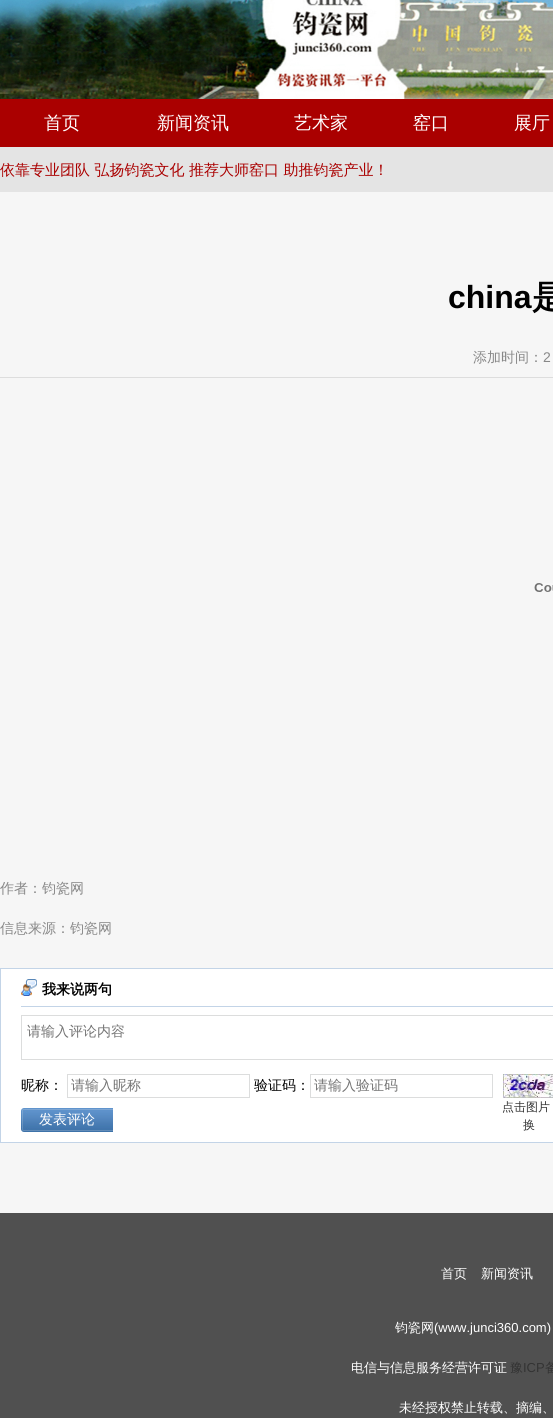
import math
import cairo



def draw_image(context, path, x, y, w, h):
    context.save()
    context.set_source_surface(cairo.ImageSurface.create_from_png(path), x, y)
    context.rectangle(x, y, w, h)
    context.fill()
    context.restore()


def draw(context):
    context.set_source_rgb(170 / 255, 0, 0)
    context.paint()
    draw_image(context, "images/1.png", 0, 0, 553, 99)
    context.set_source_rgb(228 / 255, 228 / 255, 228 / 255)
    context.rectangle(0, 147, 553, 45)
    context.fill()
    context.set_source_rgb(246 / 255, 246 / 255, 246 / 255)
    context.rectangle(0, 192, 553, 1021)
    context.fill()
    context.set_source_rgb(221 / 255, 221 / 255, 221 / 255)
    context.rectangle(0, 377, 553, 1)
    context.fill()
    draw_image(context, "images/2.png", 534, 583, 19, 9)
    context.set_source_rgb(1, 1, 1)
    context.rectangle(0.5, 968.5, 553, 174)
    context.fill_preserve()
    context.set_source_rgb(195 / 255, 212 / 255, 231 / 255)
    context.set_line_width(1)
    context.stroke()
    context.rectangle(21, 1006, 532, 1)
    context.fill()
    draw_image(context, "images/3.png", 21, 979, 16, 17)
    context.rectangle(21.5, 1015.5, 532, 44)
    context.set_source_rgb(220 / 255, 221 / 255, 221 / 255)
    context.stroke()
    context.rectangle(67.5, 1074.5, 182, 23)
    context.stroke()
    context.rectangle(310.5, 1074.5, 182, 23)
    context.stroke()
    draw_image(context, "images/4.png", 21, 1108, 92, 24)
    draw_image(context, "images/5.png", 503, 1074, 50, 24)
    context.set_source_rgb(80 / 255, 80 / 255, 80 / 255)
    context.rectangle(0, 1213, 553, 205)
    context.fill()
    context.select_font_face("WenQuanYi Zen Hei Medium")
    context.set_font_size(18)
    context.set_source_rgb(1, 1, 1)
    context.move_to(44, 129)
    context.show_text("首页")
    context.move_to(157, 129)
    context.show_text("新闻资讯")
    context.move_to(294, 129)
    context.show_text("艺术家")
    context.move_to(413, 129)
    context.show_text("窑口")
    context.move_to(514, 129)
    context.show_text("展厅")
    context.set_font_size(15)
    context.set_source_rgb(170 / 255, 0, 0)
    context.move_to(0, 175)
    context.show_text("依靠专业团队 弘扬钧瓷文化 推荐大师窑口 助推钧瓷产业！")
    context.select_font_face("Liberation Sans", cairo.FontSlant.NORMAL, cairo.FontWeight.BOLD)
    context.set_font_size(32)
    context.set_source_rgb(0, 0, 0)
    context.move_to(448, 308)
    context.show_text("china")
    context.select_font_face("WenQuanYi Zen Hei", cairo.FontSlant.NORMAL, cairo.FontWeight.BOLD)
    context.move_to(532, 308)
    context.show_text("是")
    context.select_font_face("WenQuanYi Zen Hei Medium")
    context.set_font_size(14)
    context.set_source_rgb(136 / 255, 136 / 255, 136 / 255)
    context.move_to(473, 362)
    context.show_text("添加时间：")
    context.select_font_face("Liberation Sans")
    context.move_to(543, 362)
    context.show_text("2")
    context.select_font_face("WenQuanYi Zen Hei Medium")
    context.move_to(0, 893)
    context.show_text("作者：钧瓷网")
    context.move_to(0, 933)
    context.show_text("信息来源：钧瓷网")
    context.select_font_face("WenQuanYi Zen Hei", cairo.FontSlant.NORMAL, cairo.FontWeight.BOLD)
    context.set_source_rgb(0, 0, 0)
    context.move_to(42, 994)
    context.show_text("我来说两句")
    context.select_font_face("WenQuanYi Zen Hei Medium")
    context.set_source_rgb(117 / 255, 117 / 255, 117 / 255)
    context.move_to(27, 1036)
    context.show_text("请输入评论内容")
    context.set_source_rgb(0, 0, 0)
    context.move_to(21, 1090)
    context.show_text("昵称：")
    context.set_source_rgb(117 / 255, 117 / 255, 117 / 255)
    context.move_to(71, 1090)
    context.show_text("请输入昵称")
    context.set_source_rgb(0, 0, 0)
    context.move_to(254, 1090)
    context.show_text("验证码：")
    context.set_source_rgb(117 / 255, 117 / 255, 117 / 255)
    context.move_to(314, 1090)
    context.show_text("请输入验证码")
    context.set_source_rgb(1, 1, 1)
    context.move_to(39, 1124)
    context.show_text("发表评论")
    context.set_font_size(12)
    context.set_source_rgb(51 / 255, 51 / 255, 51 / 255)
    context.move_to(502, 1111)
    context.show_text("点击图片")
    context.move_to(523, 1129)
    context.show_text("换")
    context.set_font_size(13)
    context.set_source_rgb(1, 1, 1)
    context.move_to(441, 1278)
    context.show_text("首页")
    context.move_to(481, 1278)
    context.show_text("新闻资讯")
    context.move_to(395, 1332)
    context.show_text("钧瓷网")
    context.select_font_face("Liberation Sans")
    context.move_to(434, 1332)
    context.show_text("(www.junci360.com)")
    context.select_font_face("WenQuanYi Zen Hei Medium")
    context.move_to(351, 1372)
    context.show_text("电信与信息服务经营许可证")
    context.set_source_rgb(51 / 255, 51 / 255, 51 / 255)
    context.move_to(510, 1372)
    context.show_text("豫")
    context.select_font_face("Liberation Sans")
    context.move_to(523, 1372)
    context.show_text("ICP")
    context.select_font_face("WenQuanYi Zen Hei Medium")
    context.move_to(545, 1372)
    context.show_text("备")
    context.set_source_rgb(1, 1, 1)
    context.move_to(399, 1412)
    context.show_text("未经授权禁止转载、摘编、")


surface = cairo.ImageSurface(cairo.Format.RGB24, 553, 1418)
context = cairo.Context(surface)
options = cairo.FontOptions()
options.set_hint_metrics(cairo.HintMetrics.OFF)
options.set_hint_style(cairo.HintStyle.NONE)
context.set_font_options(options)
context.set_miter_limit(4)
draw(context)
surface.write_to_png("out.png")
